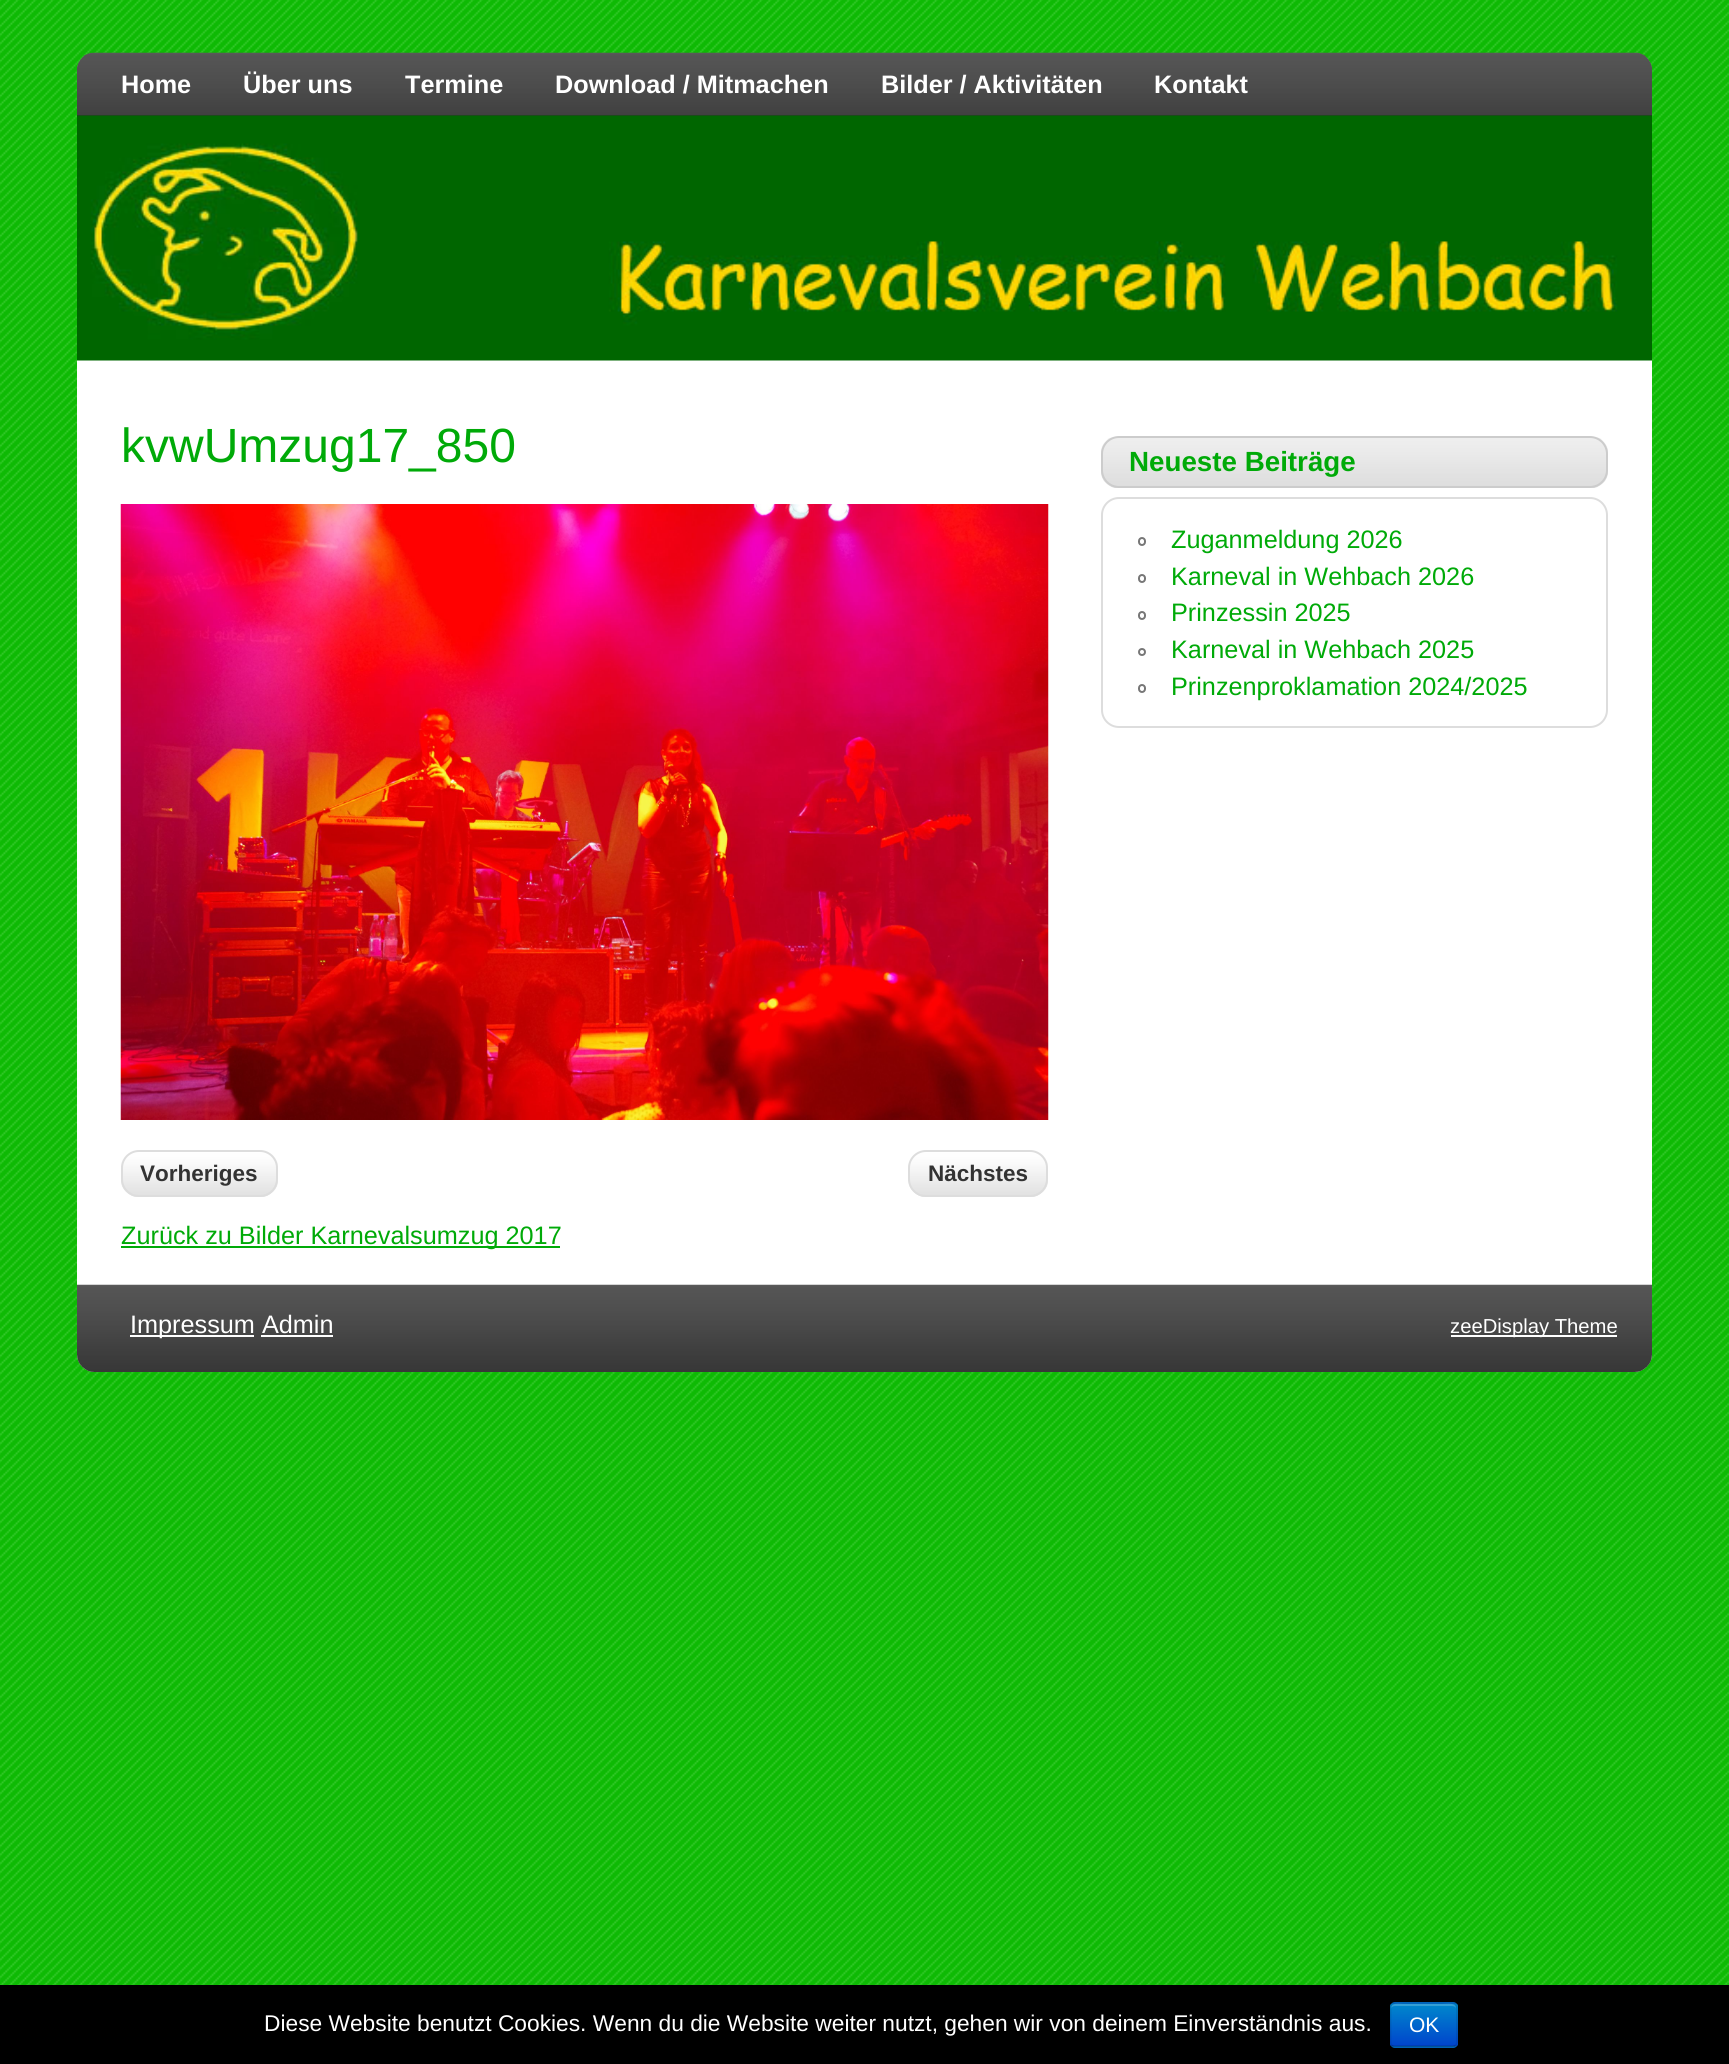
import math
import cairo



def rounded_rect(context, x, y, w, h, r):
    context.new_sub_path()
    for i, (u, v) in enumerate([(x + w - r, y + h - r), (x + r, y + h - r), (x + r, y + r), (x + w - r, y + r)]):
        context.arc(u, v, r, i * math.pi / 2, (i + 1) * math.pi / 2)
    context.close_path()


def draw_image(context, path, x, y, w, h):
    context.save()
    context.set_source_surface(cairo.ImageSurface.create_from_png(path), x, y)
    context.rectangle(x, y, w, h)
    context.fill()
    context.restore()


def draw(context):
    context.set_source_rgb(1, 1, 1)
    context.paint()
    draw_image(context, "images/1.png", 0, 0, 1729, 1985)
    context.set_source_rgb(1, 1, 1)
    rounded_rect(context, 77, 53, 1575, 1319, 18)
    context.fill()
    context.set_source_rgb(51 / 255, 51 / 255, 51 / 255)
    context.new_path()
    context.move_to(95, 53)
    context.line_to(1634, 53)
    context.curve_to(1644, 53, 1652, 61, 1652, 71)
    context.line_to(1652, 116)
    context.line_to(77, 116)
    context.line_to(77, 71)
    context.curve_to(77, 61, 85, 53, 95, 53)
    context.close_path()
    context.fill()
    draw_image(context, "images/2.png", 77, 52, 1575, 63)
    draw_image(context, "images/3.png", 77, 115, 1575, 246)
    draw_image(context, "images/4.png", 120, 504, 929, 616)
    draw_image(context, "images/5.png", 121, 1151, 157, 46)
    rounded_rect(context, 122, 1151, 155, 45, 17)
    context.set_source_rgb(221 / 255, 221 / 255, 221 / 255)
    context.stroke()
    draw_image(context, "images/6.png", 908, 1151, 140, 46)
    rounded_rect(context, 909, 1151, 138, 45, 17)
    context.stroke()
    context.set_source_rgb(0, 170 / 255, 8 / 255)
    context.rectangle(121, 1246, 439, 2)
    context.fill()
    draw_image(context, "images/7.png", 1101, 437, 507, 51)
    rounded_rect(context, 1102, 437, 505, 50, 17)
    context.set_source_rgb(204 / 255, 204 / 255, 204 / 255)
    context.stroke()
    rounded_rect(context, 1102, 498, 505, 229, 17)
    context.set_source_rgb(221 / 255, 221 / 255, 221 / 255)
    context.stroke()
    rounded_rect(context, 1139, 538, 6, 7, 3)
    context.set_source_rgb(119 / 255, 119 / 255, 119 / 255)
    context.stroke()
    rounded_rect(context, 1139, 575, 6, 7, 3)
    context.stroke()
    rounded_rect(context, 1139, 612, 6, 7, 3)
    context.stroke()
    context.arc(1142, 652, 3, 0, 2 * math.pi)
    context.stroke()
    rounded_rect(context, 1139, 685, 6, 7, 3)
    context.stroke()
    draw_image(context, "images/8.png", 77, 1284, 1575, 88)
    context.set_source_rgb(1, 1, 1)
    context.rectangle(130, 1335, 124, 2)
    context.fill()
    context.rectangle(1451, 1335, 166, 2)
    context.fill()
    context.rectangle(261, 1335, 72, 2)
    context.fill()
    context.set_source_rgb(0, 0, 0)
    context.rectangle(0, 1985, 1729, 79)
    context.fill()
    context.set_source_rgb(0, 109 / 255, 204 / 255)
    rounded_rect(context, 1390, 2002, 68, 46, 5)
    context.fill()
    context.save()
    rounded_rect(context, 1390, 2002, 68, 46, 5)
    context.clip()
    gradient = cairo.LinearGradient(1424, 2004, 1424, 2046)
    gradient.add_color_stop_rgba(0, 0, 136 / 255, 204 / 255, 1)
    gradient.add_color_stop_rgba(1, 0, 68 / 255, 204 / 255, 1)
    context.set_source(gradient)
    context.rectangle(1390, 2004, 68, 42)
    context.fill()
    context.restore()
    context.set_source_rgba(1, 1, 1, 0.2)
    context.new_path()
    context.move_to(1395, 2006)
    context.line_to(1452, 2006)
    context.curve_to(1454, 2006, 1456, 2007, 1456, 2009)
    context.curve_to(1456, 2002, 1448, 2004, 1442, 2004)
    context.line_to(1404, 2004)
    context.curve_to(1399, 2004, 1391, 2002, 1391, 2009)
    context.curve_to(1391, 2007, 1393, 2006, 1395, 2006)
    context.close_path()
    context.fill()
    context.new_path()
    context.move_to(1455.5, 2045.5)
    context.curve_to(1455, 2046, 1453.5, 2046.5, 1452.5, 2046.5)
    context.line_to(1395, 2046.5)
    context.curve_to(1393.5, 2046.5, 1392.5, 2046, 1391.5, 2045.5)
    context.set_source_rgba(0, 0, 0, 0.25)
    context.set_line_width(1.8)
    context.stroke()
    context.new_path()
    context.move_to(1391.5, 2045.5)
    context.curve_to(1391, 2044.5, 1390.5, 2043.5, 1390.5, 2042)
    context.line_to(1390.5, 2007)
    context.curve_to(1390.5, 2006, 1391, 2005, 1391.5, 2004)
    context.curve_to(1392.5, 2003.5, 1393.5, 2003, 1395, 2003)
    context.line_to(1452.5, 2003)
    context.curve_to(1453.5, 2003, 1455, 2003.5, 1455.5, 2004)
    context.curve_to(1456.5, 2005, 1457, 2006, 1457, 2007)
    context.line_to(1457, 2042)
    context.curve_to(1457, 2043.5, 1456.5, 2044.5, 1455.5, 2045.5)
    context.set_source_rgba(0, 0, 0, 0.1)
    context.stroke()
    context.select_font_face("Liberation Sans", cairo.FontSlant.NORMAL, cairo.FontWeight.BOLD)
    context.set_font_size(25.25)
    context.set_source_rgb(1, 1, 1)
    context.move_to(121, 93)
    context.show_text("Home")
    context.move_to(243, 93)
    context.show_text("Über uns")
    context.move_to(405, 93)
    context.show_text("Termine")
    context.move_to(555, 93)
    context.show_text("Download / Mitmachen")
    context.move_to(881, 93)
    context.show_text("Bilder / Aktivitäten")
    context.move_to(1154, 93)
    context.show_text("Kontakt")
    context.select_font_face("Liberation Sans")
    context.set_font_size(48)
    context.set_source_rgb(0, 170 / 255, 8 / 255)
    context.move_to(121, 462)
    context.show_text("kvwUmzug17_850")
    context.select_font_face("Liberation Sans", cairo.FontSlant.NORMAL, cairo.FontWeight.BOLD)
    context.set_font_size(22.5)
    context.set_source_rgb(51 / 255, 51 / 255, 51 / 255)
    context.move_to(140, 1181)
    context.show_text("Vorheriges")
    context.move_to(928, 1181)
    context.show_text("Nächstes")
    context.select_font_face("Liberation Sans")
    context.set_font_size(25.25)
    context.set_source_rgb(0, 170 / 255, 8 / 255)
    context.move_to(121, 1244)
    context.show_text("Zurück zu Bilder Karnevalsumzug 2017")
    context.select_font_face("Liberation Sans", cairo.FontSlant.NORMAL, cairo.FontWeight.BOLD)
    context.set_font_size(27.75)
    context.move_to(1129, 471)
    context.show_text("Neueste Beiträge")
    context.select_font_face("Liberation Sans")
    context.set_font_size(25.25)
    context.move_to(1171, 548)
    context.show_text("Zuganmeldung 2026")
    context.move_to(1171, 585)
    context.show_text("Karneval in Wehbach 2026")
    context.move_to(1171, 621)
    context.show_text("Prinzessin 2025")
    context.move_to(1171, 658)
    context.show_text("Karneval in Wehbach 2025")
    context.move_to(1171, 695)
    context.show_text("Prinzenproklamation 2024/2025")
    context.set_source_rgb(1, 1, 1)
    context.move_to(130, 1333)
    context.show_text("Impressum Admin")
    context.set_font_size(20.25)
    context.move_to(1450, 1333)
    context.show_text("zeeDisplay Theme")
    context.set_font_size(22.75)
    context.move_to(264, 2031)
    context.show_text("Diese Website benutzt Cookies. Wenn du die Website weiter nutzt, gehen wir von deinem Einverständnis aus.")
    context.set_font_size(21)
    context.move_to(1409, 2032)
    context.show_text("OK")


surface = cairo.ImageSurface(cairo.Format.RGB24, 1729, 2064)
context = cairo.Context(surface)
options = cairo.FontOptions()
options.set_hint_metrics(cairo.HintMetrics.OFF)
options.set_hint_style(cairo.HintStyle.NONE)
context.set_font_options(options)
context.set_miter_limit(4)
draw(context)
surface.write_to_png("out.png")
